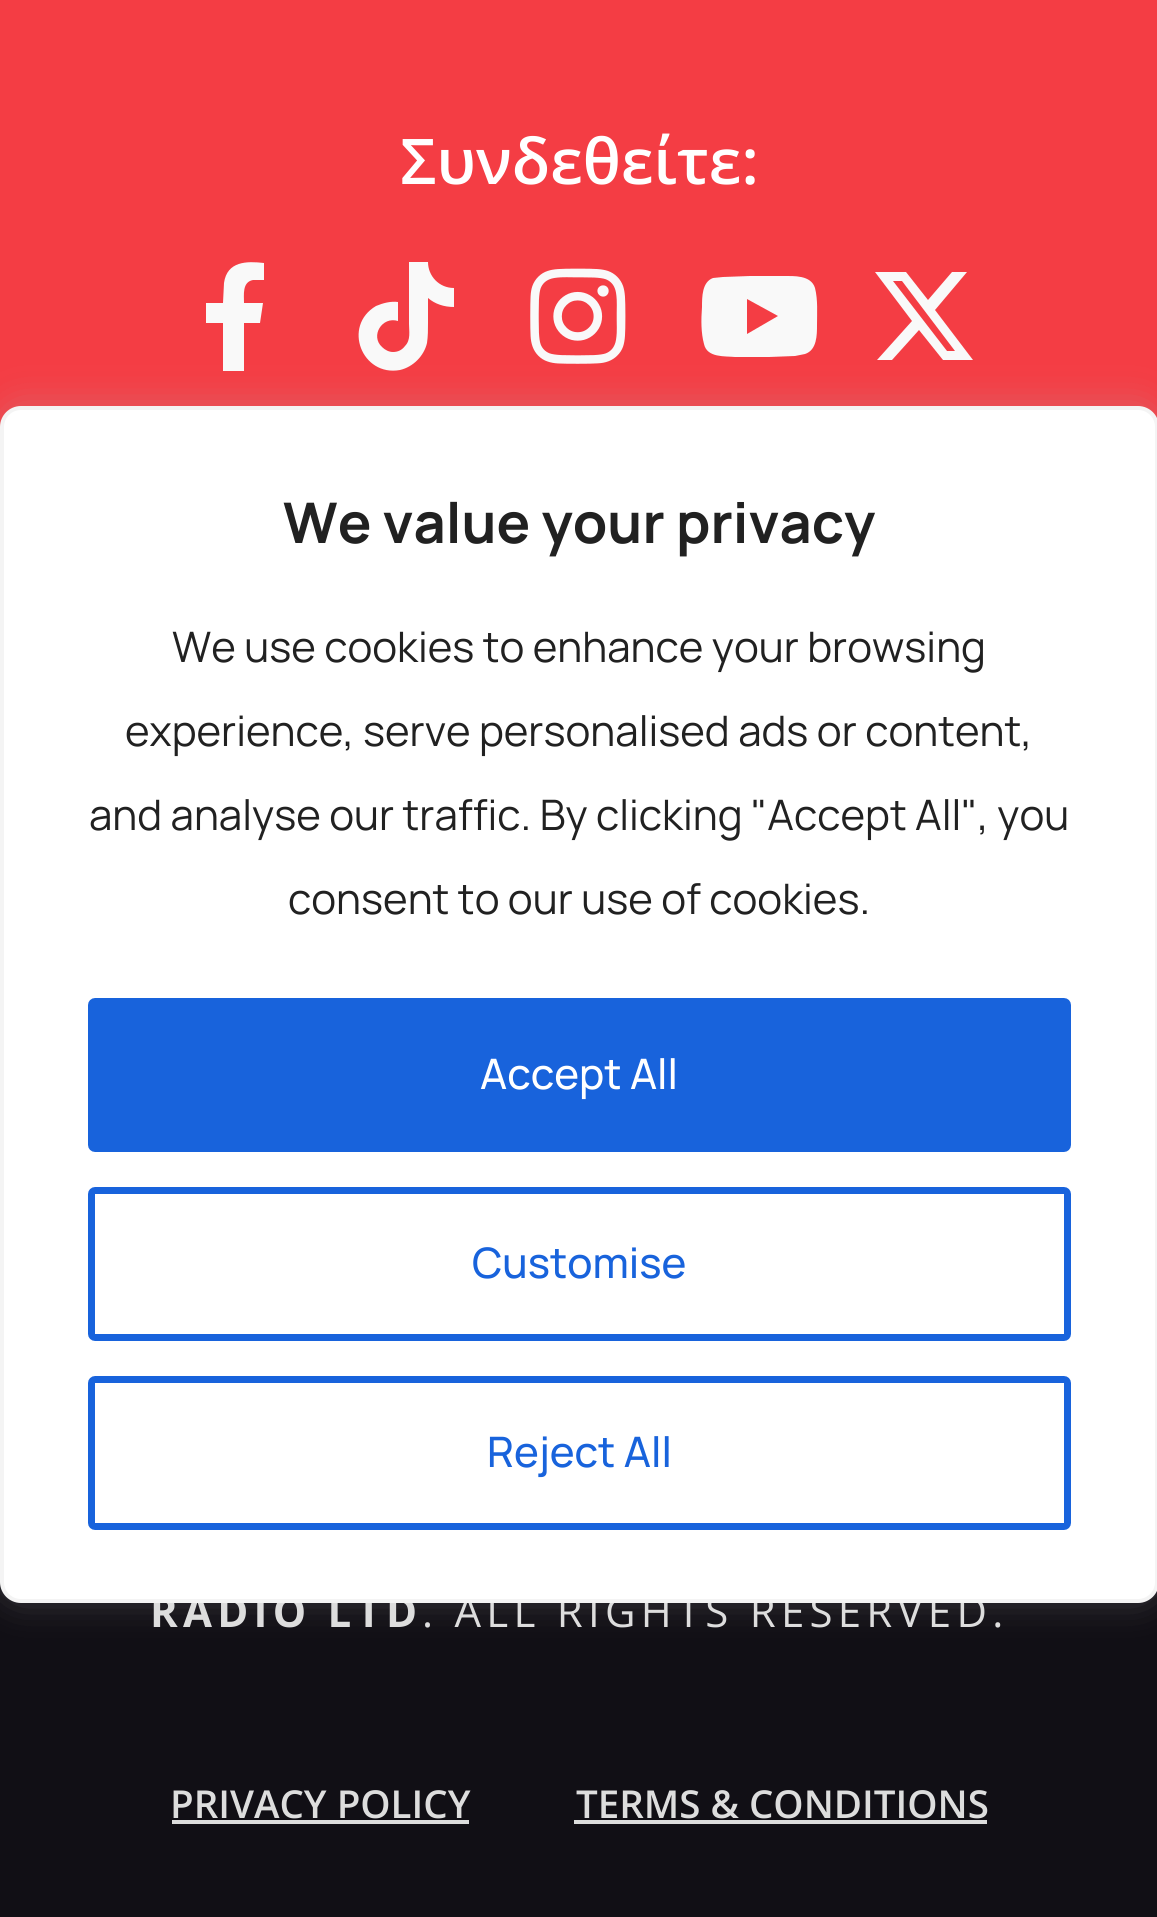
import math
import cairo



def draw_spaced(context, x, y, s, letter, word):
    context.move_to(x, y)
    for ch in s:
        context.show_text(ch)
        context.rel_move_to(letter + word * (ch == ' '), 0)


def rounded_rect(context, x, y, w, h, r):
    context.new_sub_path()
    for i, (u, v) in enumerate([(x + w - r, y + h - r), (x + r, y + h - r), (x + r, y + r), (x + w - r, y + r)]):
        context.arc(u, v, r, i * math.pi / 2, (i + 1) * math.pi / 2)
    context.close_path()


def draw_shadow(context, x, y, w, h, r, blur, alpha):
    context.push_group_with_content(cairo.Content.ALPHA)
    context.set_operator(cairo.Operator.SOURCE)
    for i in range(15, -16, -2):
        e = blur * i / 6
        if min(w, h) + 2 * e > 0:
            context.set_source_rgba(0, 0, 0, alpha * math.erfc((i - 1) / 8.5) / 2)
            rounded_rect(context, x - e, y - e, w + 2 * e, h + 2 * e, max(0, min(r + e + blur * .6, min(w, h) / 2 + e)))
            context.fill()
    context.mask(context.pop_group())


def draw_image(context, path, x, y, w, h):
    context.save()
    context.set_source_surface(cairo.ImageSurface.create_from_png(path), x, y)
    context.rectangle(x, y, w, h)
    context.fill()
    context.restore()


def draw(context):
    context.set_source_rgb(244 / 255, 61 / 255, 68 / 255)
    context.paint()
    context.set_source_rgb(249 / 255, 249 / 255, 249 / 255)
    context.new_path()
    context.move_to(260, 323)
    context.line_to(244, 323)
    context.line_to(244, 371)
    context.line_to(223, 371)
    context.line_to(223, 323)
    context.line_to(206, 323)
    context.line_to(206, 303)
    context.line_to(223, 303)
    context.line_to(224, 283)
    context.curve_to(227, 261, 247, 261, 264, 263)
    context.line_to(264, 280)
    context.line_to(253, 280)
    context.curve_to(242, 282, 244, 295, 244, 303)
    context.line_to(263, 303)
    context.close_path()
    context.fill()
    context.new_path()
    context.move_to(454, 307)
    context.curve_to(444, 307, 435, 304, 428, 298)
    context.line_to(428, 323)
    context.curve_to(428, 330, 428, 336, 427, 343)
    context.curve_to(424, 356, 413, 367, 400, 370)
    context.curve_to(362, 377, 342, 326, 376, 306)
    context.curve_to(383, 303, 391, 301, 398, 302)
    context.line_to(398, 321)
    context.curve_to(382, 316, 370, 336, 382, 347)
    context.curve_to(385, 350, 389, 352, 393, 352)
    context.curve_to(398, 352, 402, 350, 405, 346)
    context.curve_to(411, 340, 409, 331, 409, 324)
    context.line_to(409, 262)
    context.line_to(428, 262)
    context.curve_to(428, 276, 439, 288, 454, 288)
    context.close_path()
    context.fill()
    draw_image(context, "images/1.png", 530, 268, 96, 96)
    context.new_path()
    context.move_to(815, 288)
    context.curve_to(818, 300, 817, 313, 817, 325)
    context.curve_to(817, 335, 817, 350, 805, 354)
    context.line_to(795, 356)
    context.line_to(769, 357)
    context.line_to(735, 357)
    context.curve_to(725, 356, 707, 358, 704, 344)
    context.curve_to(701, 333, 701, 320, 702, 307)
    context.curve_to(702, 297, 702, 282, 713, 278)
    context.line_to(723, 277)
    context.line_to(750, 276)
    context.line_to(783, 276)
    context.curve_to(794, 276, 811, 275, 815, 288)
    context.close_path()
    context.move_to(747, 334)
    context.line_to(778, 316)
    context.line_to(747, 299)
    context.close_path()
    context.fill()
    context.new_path()
    context.move_to(952, 272)
    context.line_to(967, 272)
    context.line_to(935, 310)
    context.line_to(973, 360)
    context.line_to(943, 360)
    context.line_to(919, 330)
    context.line_to(892, 360)
    context.line_to(877, 360)
    context.line_to(912, 321)
    context.line_to(875, 272)
    context.line_to(906, 272)
    context.line_to(928, 300)
    context.close_path()
    context.move_to(947, 351)
    context.line_to(955, 351)
    context.line_to(902, 281)
    context.line_to(893, 281)
    context.close_path()
    context.fill()
    context.set_source_rgb(17 / 255, 15 / 255, 21 / 255)
    context.rectangle(0, 1582, 1157, 335)
    context.fill()
    context.set_source_rgb(221 / 255, 221 / 255, 221 / 255)
    context.rectangle(172, 1820, 297, 4)
    context.fill()
    context.rectangle(574, 1820, 413, 4)
    context.fill()
    context.set_source_rgb(172 / 255, 171 / 255, 171 / 255)
    draw_shadow(context, 0, 403, 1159, 1197, 21, 17.5, 0.3)
    context.select_font_face("Open Sans SemiBold")
    context.set_font_size(63)
    context.set_source_rgb(1, 1, 1)
    context.move_to(400, 184)
    context.show_text("Συνδεθείτε:")
    context.select_font_face("Open Sans", cairo.FontSlant.NORMAL, cairo.FontWeight.BOLD)
    context.set_font_size(42)
    context.set_source_rgb(221 / 255, 221 / 255, 221 / 255)
    draw_spaced(context, 150, 1627, "RADIO LTD", 5.25, 0)
    context.select_font_face("Open Sans")
    draw_spaced(context, 422, 1627, ". ALL RIGHTS RESERVED.", 5.25, 0)
    context.select_font_face("Open Sans SemiBold")
    context.set_font_size(38.5)
    context.move_to(170, 1818)
    context.show_text("PRIVACY POLICY")
    context.move_to(576, 1818)
    context.show_text("TERMS & CONDITIONS")
    context.set_source_rgb(1, 1, 1)
    rounded_rect(context, 2, 408, 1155, 1193, 19)
    context.fill_preserve()
    context.set_source_rgb(244 / 255, 244 / 255, 244 / 255)
    context.set_line_width(4)
    context.stroke()
    context.select_font_face("Manrope", cairo.FontSlant.NORMAL, cairo.FontWeight.BOLD)
    context.set_font_size(56)
    context.set_source_rgb(33 / 255, 33 / 255, 33 / 255)
    context.move_to(283, 543)
    context.show_text("We value your privacy")
    context.select_font_face("Manrope")
    context.set_font_size(42)
    context.move_to(172, 662)
    context.show_text("We use cookies to enhance your browsing")
    context.move_to(125, 746)
    context.show_text("experience, serve personalised ads or content,")
    context.move_to(89, 830)
    context.show_text("and analyse our traffic. By clicking \"Accept All\", you")
    context.move_to(288, 914)
    context.show_text("consent to our use of cookies.")
    context.set_source_rgb(24 / 255, 99 / 255, 220 / 255)
    rounded_rect(context, 91.5, 1001.5, 976, 147, 3.5)
    context.fill_preserve()
    context.set_line_width(7)
    context.stroke()
    context.select_font_face("Manrope Medium")
    context.set_source_rgb(1, 1, 1)
    context.move_to(480, 1089)
    context.show_text("Accept All")
    rounded_rect(context, 91.5, 1190.5, 976, 147, 3.5)
    context.set_source_rgb(24 / 255, 99 / 255, 220 / 255)
    context.stroke()
    context.move_to(472, 1278)
    context.show_text("Customise")
    rounded_rect(context, 91.5, 1379.5, 976, 147, 3.5)
    context.stroke()
    context.move_to(487, 1467)
    context.show_text("Reject All")


surface = cairo.ImageSurface(cairo.Format.RGB24, 1157, 1917)
context = cairo.Context(surface)
options = cairo.FontOptions()
options.set_hint_metrics(cairo.HintMetrics.OFF)
options.set_hint_style(cairo.HintStyle.NONE)
context.set_font_options(options)
context.set_miter_limit(4)
draw(context)
surface.write_to_png("out.png")
